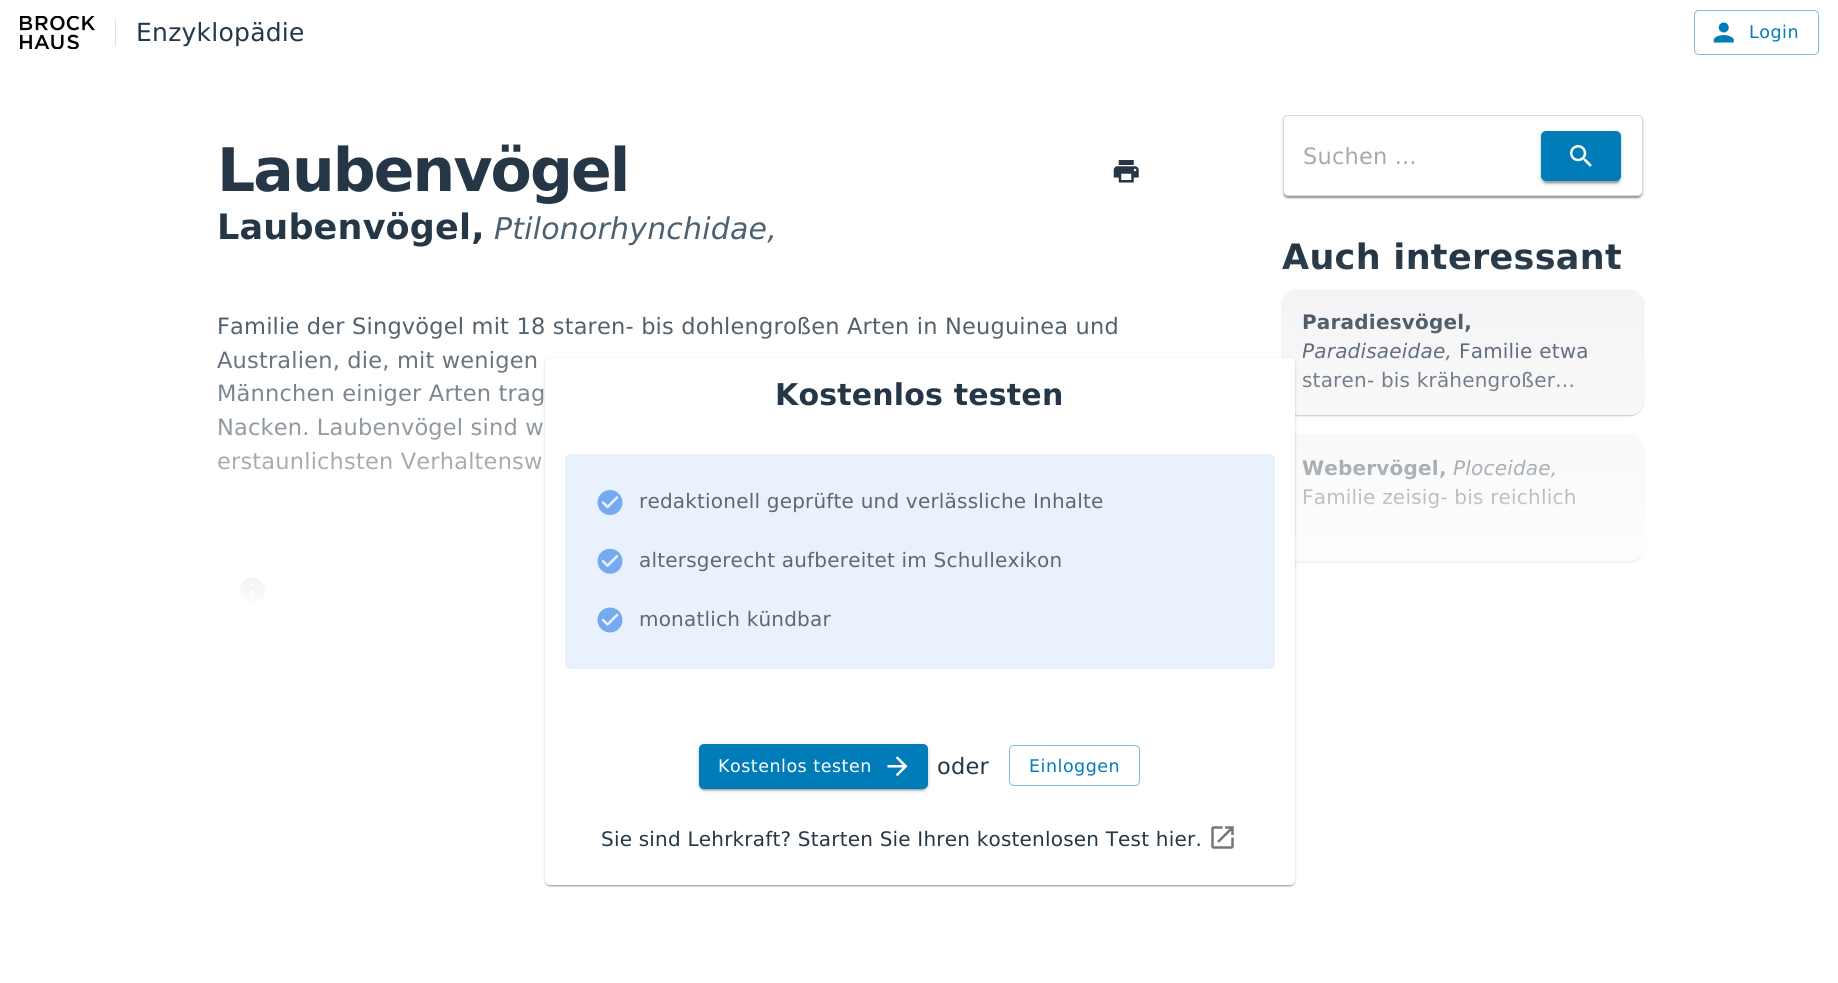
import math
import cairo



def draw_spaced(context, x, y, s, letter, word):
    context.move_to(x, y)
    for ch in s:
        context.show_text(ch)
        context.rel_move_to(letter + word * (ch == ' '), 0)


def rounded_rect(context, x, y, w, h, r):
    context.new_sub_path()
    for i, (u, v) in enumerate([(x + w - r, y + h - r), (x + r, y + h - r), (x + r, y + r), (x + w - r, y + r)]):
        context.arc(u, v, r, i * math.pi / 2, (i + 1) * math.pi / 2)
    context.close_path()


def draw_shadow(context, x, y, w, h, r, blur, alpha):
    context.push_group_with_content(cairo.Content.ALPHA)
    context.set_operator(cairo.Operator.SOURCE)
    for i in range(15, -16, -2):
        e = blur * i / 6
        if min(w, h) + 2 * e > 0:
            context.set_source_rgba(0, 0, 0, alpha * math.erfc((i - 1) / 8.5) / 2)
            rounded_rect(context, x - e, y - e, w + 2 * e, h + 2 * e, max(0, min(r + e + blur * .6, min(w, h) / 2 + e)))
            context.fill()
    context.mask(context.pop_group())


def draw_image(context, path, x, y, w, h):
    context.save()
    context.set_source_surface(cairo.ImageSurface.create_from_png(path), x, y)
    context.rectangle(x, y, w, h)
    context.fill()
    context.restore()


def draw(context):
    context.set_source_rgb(1, 1, 1)
    context.paint()
    draw_image(context, "images/1.png", 20, 16, 75, 33)
    context.set_source_rgb(224 / 255, 224 / 255, 224 / 255)
    context.rectangle(115, 19, 1, 27)
    context.fill()
    rounded_rect(context, 1694.5, 10.5, 124, 44, 4.5)
    context.set_source_rgb(128 / 255, 190 / 255, 220 / 255)
    context.set_line_width(1)
    context.stroke()
    draw_image(context, "images/2.png", 1713, 22, 21, 21)
    draw_image(context, "images/3.png", 1113, 160, 26, 23)
    context.set_source_rgb(0, 0, 0)
    draw_shadow(context, 218, 559, 930, 64, 0, 2, 0.12)
    context.set_source_rgb(1, 1, 1)
    context.rectangle(218, 558, 327, 51)
    context.fill()
    draw_image(context, "images/4.png", 240, 577, 25, 26)
    context.set_source_rgb(0, 0, 0)
    draw_shadow(context, 1283, 116, 360, 82, 5, 2, 0.12)
    draw_shadow(context, 1283, 116, 360, 82, 5, 0.5, 0.14)
    draw_shadow(context, 1284, 119, 357, 79, 4, 0.5, 0.2)
    context.set_source_rgb(1, 1, 1)
    rounded_rect(context, 1283.5, 115.5, 359, 80, 4.5)
    context.fill_preserve()
    context.set_source_rgb(208 / 255, 220 / 255, 230 / 255)
    context.stroke()
    context.set_source_rgb(0, 0, 0)
    draw_shadow(context, 1541, 133, 80, 50, 5, 3, 0.12)
    draw_shadow(context, 1541, 134, 80, 50, 5, 1, 0.14)
    draw_shadow(context, 1544, 138, 75, 45, 2.5, 0.5, 0.2)
    context.set_source_rgb(0, 125 / 255, 184 / 255)
    rounded_rect(context, 1541, 131, 80, 50, 5)
    context.fill()
    draw_image(context, "images/5.png", 1570, 145, 22, 22)
    context.set_source_rgb(0, 0, 0)
    draw_shadow(context, 1283, 291, 360, 125, 13, 2, 0.12)
    draw_shadow(context, 1283, 291, 360, 125, 13, 0.5, 0.14)
    draw_shadow(context, 1284, 294, 357, 122, 11, 0.5, 0.2)
    context.set_source_rgb(243 / 255, 243 / 255, 245 / 255)
    rounded_rect(context, 1283, 290, 360, 125, 13)
    context.fill()
    context.set_source_rgb(0, 0, 0)
    draw_shadow(context, 1283, 436, 360, 127, 13, 2, 0.12)
    draw_shadow(context, 1283, 436, 360, 127, 13, 0.5, 0.14)
    draw_shadow(context, 1284, 439, 357, 124, 11, 0.5, 0.2)
    context.set_source_rgb(243 / 255, 243 / 255, 245 / 255)
    rounded_rect(context, 1283, 435, 360, 126, 13)
    context.fill()
    context.select_font_face("DejaVu Sans")
    context.set_font_size(25)
    context.set_source_rgb(37 / 255, 55 / 255, 70 / 255)
    draw_spaced(context, 136, 41, "Enzyklopädie", 0.25, 0)
    context.set_font_size(17.5)
    context.set_source_rgb(0, 125 / 255, 184 / 255)
    draw_spaced(context, 1749, 38, "Login", 0.5, 0)
    context.select_font_face("DejaVu Sans", cairo.FontSlant.NORMAL, cairo.FontWeight.BOLD)
    context.set_font_size(60)
    context.set_source_rgb(37 / 255, 55 / 255, 70 / 255)
    draw_spaced(context, 217, 191, "Laubenvögel", -1.9, 0)
    context.set_font_size(35)
    draw_spaced(context, 217, 239, "Laubenvögel,", 0.18, 0)
    context.select_font_face("DejaVu Sans", cairo.FontSlant.ITALIC)
    context.set_font_size(30)
    context.set_source_rgb(78 / 255, 97 / 255, 112 / 255)
    draw_spaced(context, 494, 239, "Ptilonorhynchidae,", 0.18, 0)
    context.select_font_face("DejaVu Sans")
    context.set_font_size(22.5)
    context.set_source_rgb(37 / 255, 55 / 255, 70 / 255)
    draw_spaced(context, 217, 334, "Familie der Singvögel mit 18 staren- bis dohlengroßen Arten in Neuguinea und", 0.18, 0)
    draw_spaced(context, 217, 368, "Australien, die, mit wenigen", 0.18, 0)
    draw_spaced(context, 217, 401, "Männchen einiger Arten trag", 0.18, 0)
    draw_spaced(context, 217, 435, "Nacken. Laubenvögel sind w", 0.18, 0)
    draw_spaced(context, 217, 469, "erstaunlichsten Verhaltensw", 0.18, 0)
    context.set_source_rgb(163 / 255, 171 / 255, 177 / 255)
    draw_spaced(context, 1303, 164, "Suchen ...", 0.18, 0)
    context.select_font_face("DejaVu Sans", cairo.FontSlant.NORMAL, cairo.FontWeight.BOLD)
    context.set_font_size(35)
    context.set_source_rgb(37 / 255, 55 / 255, 70 / 255)
    draw_spaced(context, 1282, 269, "Auch interessant", 0.3, 0)
    context.set_font_size(20)
    draw_spaced(context, 1302, 329, "Paradiesvögel,", 0.2, 0)
    context.save()
    context.rectangle(1303, 310, 320, 85)
    context.clip()
    context.select_font_face("DejaVu Sans", cairo.FontSlant.ITALIC)
    draw_spaced(context, 1302, 358, "Paradisaeidae,", 0.2, 0)
    context.restore()
    context.select_font_face("DejaVu Sans")
    draw_spaced(context, 1459, 358, "Familie etwa", 0.2, 0)
    draw_spaced(context, 1302, 387, "staren- bis krähengroßer…", 0.2, 0)
    context.select_font_face("DejaVu Sans", cairo.FontSlant.NORMAL, cairo.FontWeight.BOLD)
    draw_spaced(context, 1302, 475, "Webervögel,", 0.2, 0)
    context.select_font_face("DejaVu Sans", cairo.FontSlant.ITALIC)
    draw_spaced(context, 1453, 475, "Ploceidae,", 0.2, 0)
    context.select_font_face("DejaVu Sans")
    draw_spaced(context, 1302, 504, "Familie zeisig- bis reichlich", 0.2, 0)
    gradient = cairo.LinearGradient(919, 252, 919, 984)
    gradient.add_color_stop_rgba(0, 1, 1, 1, 0)
    gradient.add_color_stop_rgba(0.49, 1, 1, 1, 1)
    context.set_source(gradient)
    context.rectangle(215, 260, 1430, 366)
    context.fill()
    context.set_source_rgb(0, 0, 0)
    draw_shadow(context, 545, 359, 750, 527, 5, 2, 0.12)
    draw_shadow(context, 545, 359, 750, 527, 5, 0.5, 0.14)
    draw_shadow(context, 546, 361, 748, 525, 4, 0.5, 0.2)
    context.set_source_rgb(1, 1, 1)
    rounded_rect(context, 545, 358, 750, 527, 5)
    context.fill()
    context.select_font_face("DejaVu Sans", cairo.FontSlant.NORMAL, cairo.FontWeight.BOLD)
    context.set_font_size(30)
    context.set_source_rgb(37 / 255, 55 / 255, 70 / 255)
    draw_spaced(context, 775, 405, "Kostenlos testen", 0.18, 0)
    context.set_source_rgb(232 / 255, 241 / 255, 252 / 255)
    rounded_rect(context, 565, 454, 710, 215, 5)
    context.fill()
    draw_image(context, "images/6.png", 597, 490, 26, 25)
    context.select_font_face("DejaVu Sans")
    context.set_font_size(20)
    context.set_source_rgb(99 / 255, 101 / 255, 113 / 255)
    draw_spaced(context, 639, 508, "redaktionell geprüfte und verlässliche Inhalte", 0.2, 0)
    draw_image(context, "images/7.png", 597, 548, 26, 26)
    draw_spaced(context, 639, 567, "altersgerecht aufbereitet im Schullexikon", 0.2, 0)
    draw_image(context, "images/8.png", 597, 607, 26, 26)
    draw_spaced(context, 639, 626, "monatlich kündbar", 0.2, 0)
    context.set_source_rgb(0, 0, 0)
    draw_shadow(context, 699, 745, 229, 45, 5, 3, 0.12)
    draw_shadow(context, 699, 746, 229, 45, 5, 1, 0.14)
    draw_shadow(context, 701, 750, 224, 40, 2.5, 0.5, 0.2)
    context.set_source_rgb(0, 125 / 255, 184 / 255)
    rounded_rect(context, 699, 744, 229, 45, 5)
    context.fill()
    context.set_font_size(17.5)
    context.set_source_rgb(1, 1, 1)
    draw_spaced(context, 718, 772, "Kostenlos testen", 0.5, 0)
    draw_image(context, "images/9.png", 887, 756, 21, 21)
    context.set_font_size(22.5)
    context.set_source_rgb(37 / 255, 55 / 255, 70 / 255)
    draw_spaced(context, 937, 774, "oder", 0.18, 0)
    rounded_rect(context, 1009.5, 745.5, 130, 40, 4.5)
    context.set_source_rgb(128 / 255, 190 / 255, 220 / 255)
    context.stroke()
    context.set_font_size(17.5)
    context.set_source_rgb(0, 125 / 255, 184 / 255)
    draw_spaced(context, 1029, 772, "Einloggen", 0.5, 0)
    context.set_font_size(20)
    context.set_source_rgb(37 / 255, 55 / 255, 70 / 255)
    draw_spaced(context, 601, 846, "Sie sind Lehrkraft? Starten Sie Ihren kostenlosen Test hier.", 0.2, 0)
    draw_image(context, "images/10.png", 1211, 826, 23, 23)


surface = cairo.ImageSurface(cairo.Format.RGB24, 1838, 983)
context = cairo.Context(surface)
options = cairo.FontOptions()
options.set_hint_metrics(cairo.HintMetrics.OFF)
options.set_hint_style(cairo.HintStyle.NONE)
context.set_font_options(options)
context.set_miter_limit(4)
draw(context)
surface.write_to_png("out.png")
